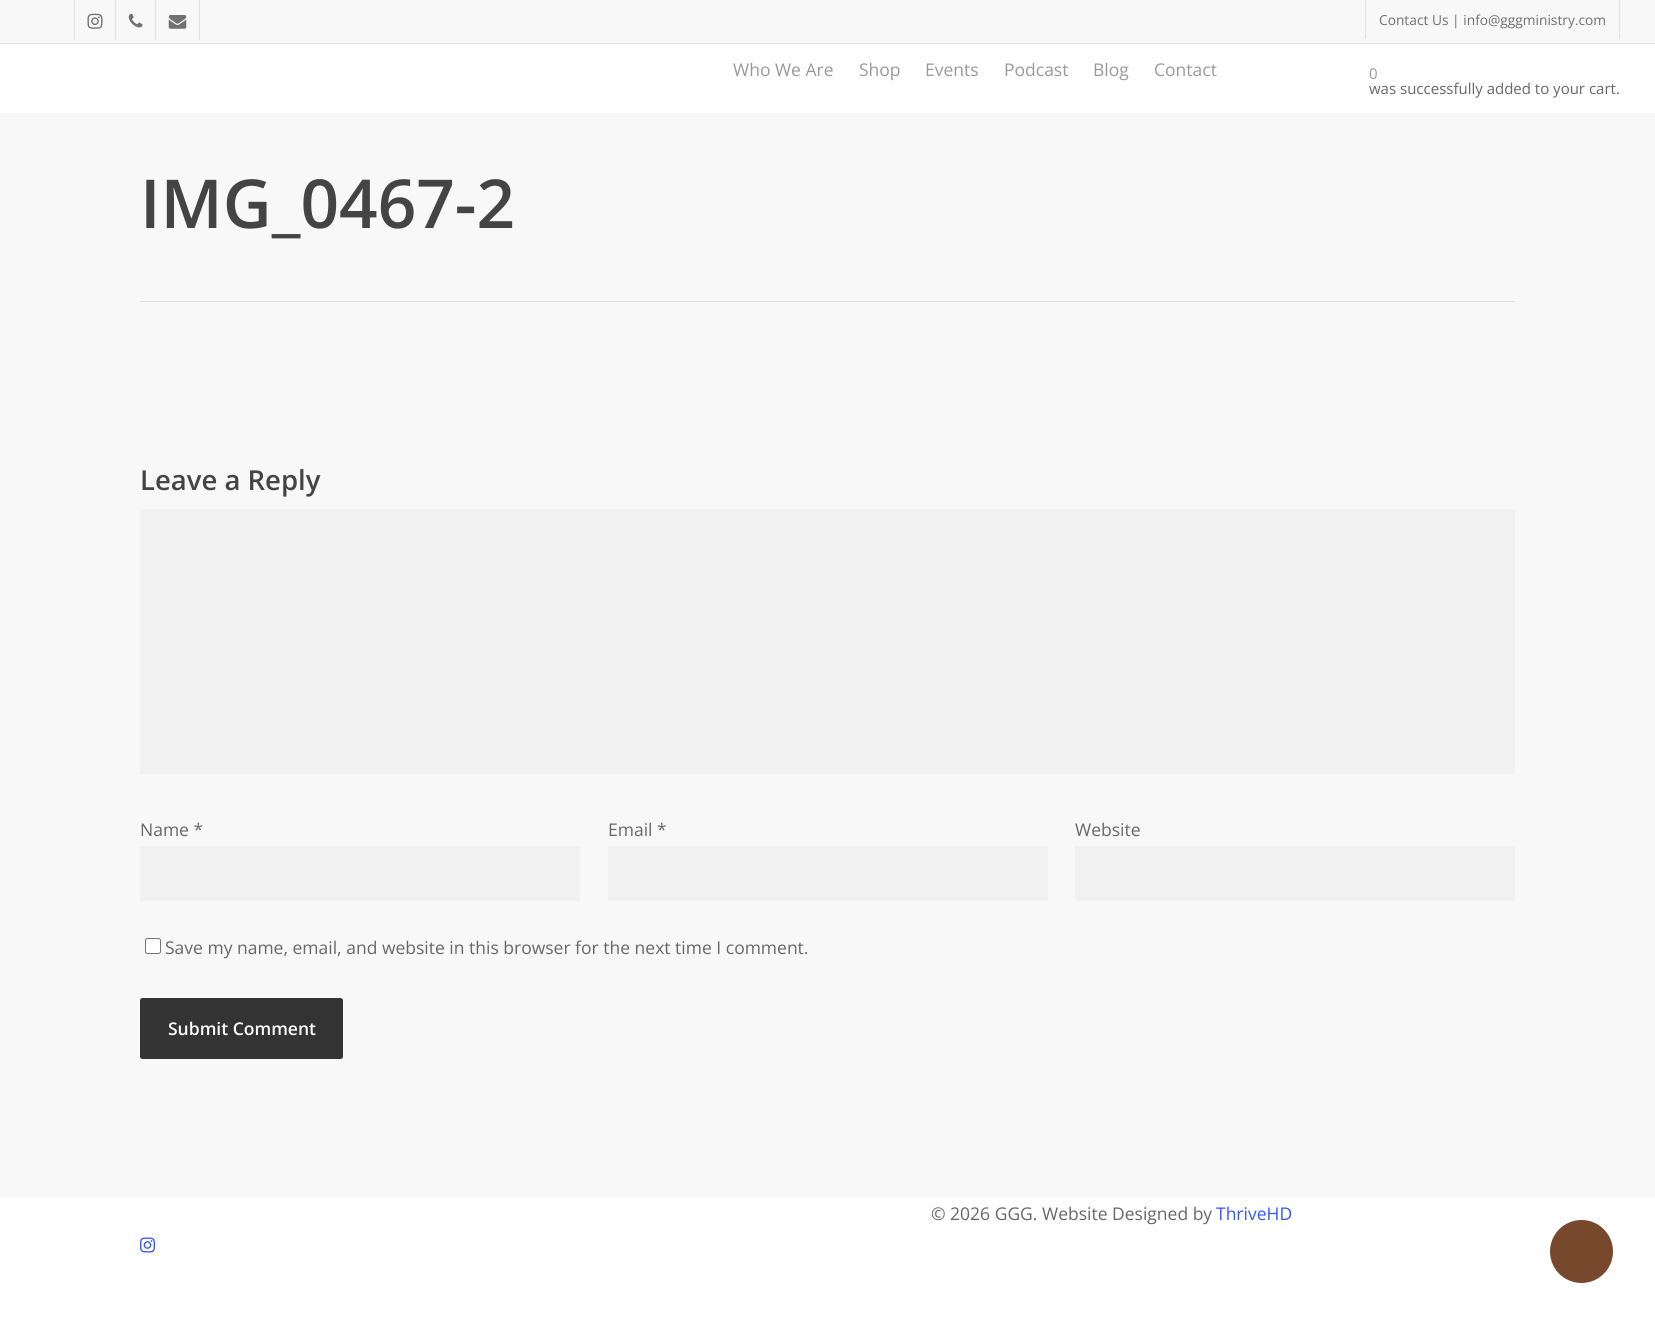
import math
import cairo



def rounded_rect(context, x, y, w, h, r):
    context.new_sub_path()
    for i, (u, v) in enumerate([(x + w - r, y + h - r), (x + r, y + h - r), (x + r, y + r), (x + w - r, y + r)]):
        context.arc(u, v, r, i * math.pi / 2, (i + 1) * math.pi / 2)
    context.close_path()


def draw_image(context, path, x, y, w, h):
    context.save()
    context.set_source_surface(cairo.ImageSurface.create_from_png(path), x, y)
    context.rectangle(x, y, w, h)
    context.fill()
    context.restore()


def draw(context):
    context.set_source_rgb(1, 1, 1)
    context.paint()
    context.set_source_rgb(248 / 255, 248 / 255, 248 / 255)
    context.rectangle(0, 0, 1655, 43)
    context.fill()
    context.set_source_rgb(223 / 255, 223 / 255, 223 / 255)
    context.rectangle(0, 43, 1655, 1)
    context.fill()
    context.rectangle(74, 0, 1, 40)
    context.fill()
    draw_image(context, "images/1.png", 87, 13, 16, 16)
    context.rectangle(115, 0, 1, 40)
    context.fill()
    draw_image(context, "images/2.png", 128, 13, 15, 15)
    context.rectangle(199, 0, 1, 40)
    context.fill()
    context.rectangle(155, 0, 1, 40)
    context.fill()
    draw_image(context, "images/3.png", 168, 15, 19, 14)
    context.rectangle(1619, 0, 1, 39)
    context.fill()
    context.rectangle(1365, 0, 1, 39)
    context.fill()
    context.set_source_rgb(248 / 255, 248 / 255, 248 / 255)
    context.rectangle(0, 113, 1655, 1085)
    context.fill()
    context.set_source_rgb(221 / 255, 221 / 255, 221 / 255)
    context.rectangle(140, 301, 1375, 1)
    context.fill()
    context.set_source_rgb(241 / 255, 241 / 255, 241 / 255)
    context.rectangle(140, 509, 1375, 265)
    context.fill()
    context.rectangle(140, 846, 440, 55)
    context.fill()
    context.rectangle(608, 846, 440, 55)
    context.fill()
    context.rectangle(1075, 846, 440, 55)
    context.fill()
    context.set_source_rgb(1, 1, 1)
    rounded_rect(context, 145.5, 938.5, 15, 15, 2)
    context.fill_preserve()
    context.set_source_rgb(118 / 255, 118 / 255, 118 / 255)
    context.set_line_width(1)
    context.stroke()
    context.set_source_rgb(51 / 255, 51 / 255, 51 / 255)
    rounded_rect(context, 140, 998, 203, 61, 2.5)
    context.fill()
    draw_image(context, "images/4.png", 140, 1237, 15, 16)
    context.set_source_rgb(119 / 255, 72 / 255, 44 / 255)
    context.arc(1581.5, 1251.5, 31.5, 0, 2 * math.pi)
    context.fill()
    context.select_font_face("Open Sans")
    context.set_font_size(13.75)
    context.set_source_rgb(112 / 255, 112 / 255, 112 / 255)
    context.move_to(1379, 25)
    context.show_text("Contact Us | info@gggministry.com")
    context.set_font_size(17.5)
    context.set_source_rgb(153 / 255, 153 / 255, 153 / 255)
    context.move_to(733, 76)
    context.show_text("Who We Are")
    context.move_to(859, 76)
    context.show_text("Shop")
    context.move_to(925, 76)
    context.show_text("Events")
    context.move_to(1004, 76)
    context.show_text("Podcast")
    context.move_to(1093, 76)
    context.show_text("Blog")
    context.move_to(1154, 76)
    context.show_text("Contact")
    context.set_font_size(15)
    context.move_to(1369, 79)
    context.show_text("0")
    context.set_source_rgb(103 / 255, 103 / 255, 103 / 255)
    context.move_to(1369, 94)
    context.show_text("was successfully added to your cart.")
    context.select_font_face("Open Sans SemiBold")
    context.set_font_size(67.5)
    context.set_source_rgb(68 / 255, 68 / 255, 68 / 255)
    context.move_to(140, 228)
    context.show_text("IMG_0467-2")
    context.set_font_size(27.5)
    context.move_to(140, 490)
    context.show_text("Leave a Reply")
    context.select_font_face("Open Sans")
    context.set_font_size(17.5)
    context.set_source_rgb(103 / 255, 103 / 255, 103 / 255)
    context.move_to(140, 836)
    context.show_text("Name *")
    context.move_to(608, 836)
    context.show_text("Email *")
    context.move_to(1075, 836)
    context.show_text("Website")
    context.move_to(165, 954)
    context.show_text("Save my name, email, and website in this browser for the next time I comment.")
    context.select_font_face("Open Sans SemiBold")
    context.set_source_rgb(1, 1, 1)
    context.move_to(168, 1035)
    context.show_text("Submit Comment")
    context.select_font_face("Open Sans")
    context.set_source_rgb(103 / 255, 103 / 255, 103 / 255)
    context.move_to(931, 1220)
    context.show_text("© 2026 GGG. Website Designed by")
    context.set_source_rgb(53 / 255, 85 / 255, 1)
    context.move_to(1216, 1220)
    context.show_text("ThriveHD")


surface = cairo.ImageSurface(cairo.Format.RGB24, 1655, 1324)
context = cairo.Context(surface)
options = cairo.FontOptions()
options.set_hint_metrics(cairo.HintMetrics.OFF)
options.set_hint_style(cairo.HintStyle.NONE)
context.set_font_options(options)
context.set_miter_limit(4)
draw(context)
surface.write_to_png("out.png")
